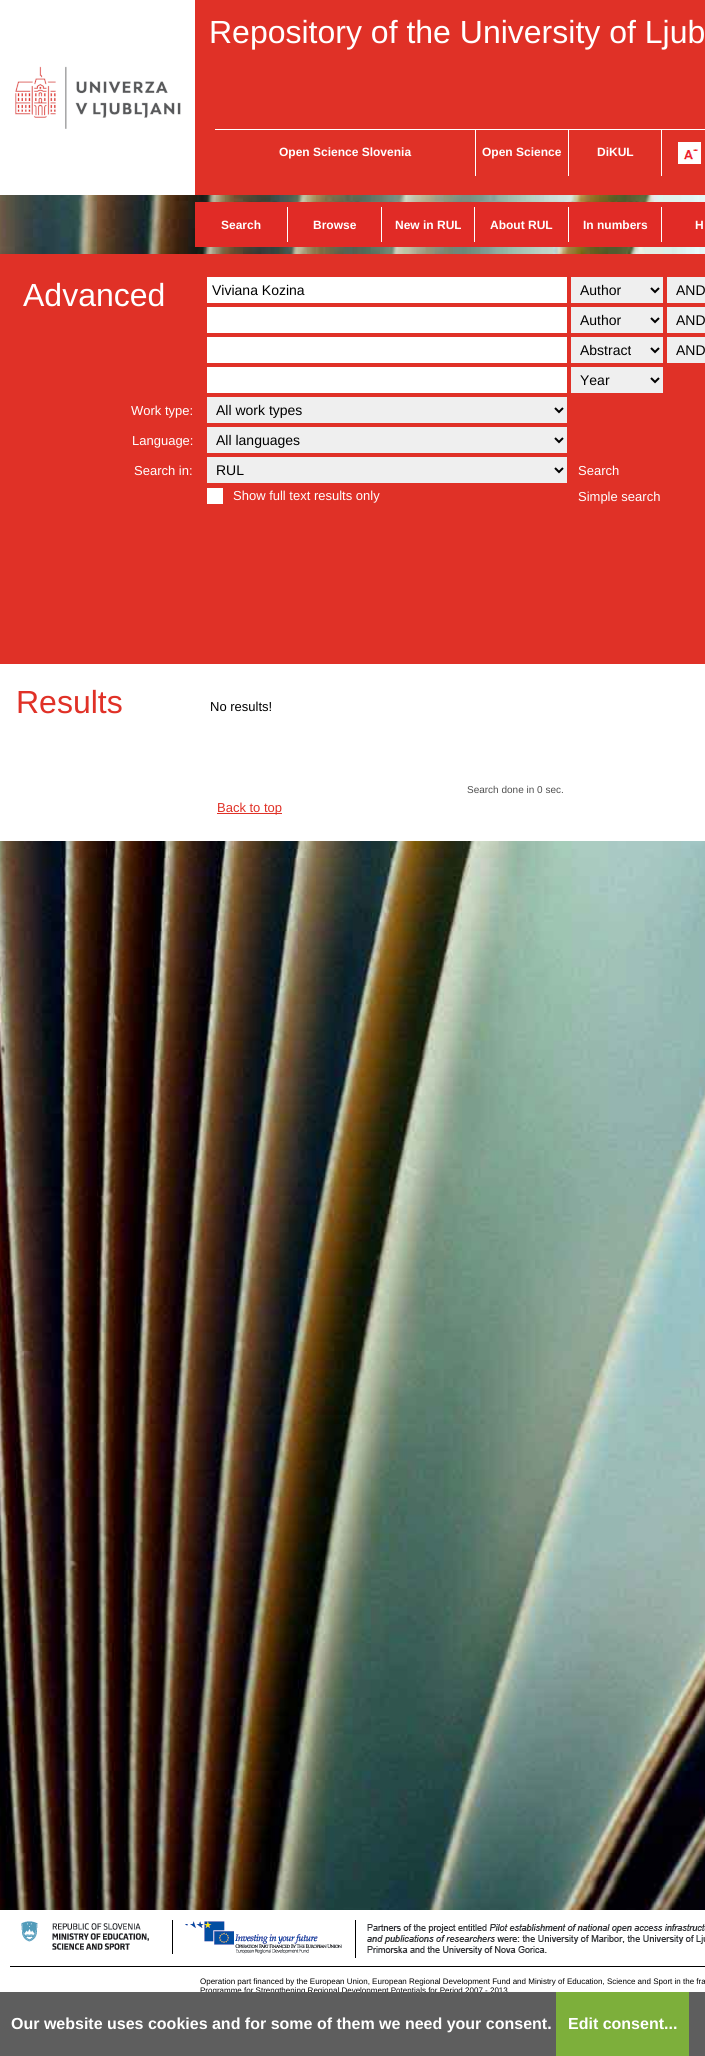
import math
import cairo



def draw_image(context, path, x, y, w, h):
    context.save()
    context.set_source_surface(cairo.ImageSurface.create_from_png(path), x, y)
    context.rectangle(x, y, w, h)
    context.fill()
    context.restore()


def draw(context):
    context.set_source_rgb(1, 1, 1)
    context.paint()
    draw_image(context, "images/1.png", 0, 195, 705, 1715)
    context.set_source_rgb(224 / 255, 49 / 255, 39 / 255)
    context.rectangle(195, 0, 510, 195)
    context.fill()
    draw_image(context, "images/2.png", 15, 66, 166, 63)
    context.set_source_rgb(1, 1, 1)
    context.rectangle(215, 129, 490, 1)
    context.fill()
    context.rectangle(475, 129, 1, 47)
    context.fill()
    context.rectangle(568, 129, 1, 47)
    context.fill()
    context.rectangle(661, 129, 1, 47)
    context.fill()
    draw_image(context, "images/3.png", 678, 142, 23, 22)
    context.set_source_rgb(225 / 255, 43 / 255, 38 / 255)
    context.rectangle(195, 202, 510, 45)
    context.fill()
    context.set_source_rgb(1, 1, 1)
    context.rectangle(287, 207, 1, 35)
    context.fill()
    context.rectangle(381, 207, 1, 35)
    context.fill()
    context.rectangle(474, 207, 1, 35)
    context.fill()
    context.rectangle(568, 207, 1, 35)
    context.fill()
    context.rectangle(661, 207, 1, 35)
    context.fill()
    context.set_source_rgb(224 / 255, 49 / 255, 39 / 255)
    context.rectangle(0, 254, 705, 410)
    context.fill()
    context.set_source_rgb(1, 1, 1)
    context.rectangle(207, 277, 360, 26)
    context.fill()
    context.set_source_rgb(239 / 255, 239 / 255, 239 / 255)
    context.rectangle(571, 277, 92, 26)
    context.fill()
    context.new_path()
    context.move_to(651, 288)
    context.line_to(655, 292)
    context.line_to(659, 288)
    context.set_source_rgb(0, 0, 0)
    context.stroke()
    context.set_source_rgb(239 / 255, 239 / 255, 239 / 255)
    context.rectangle(667, 277, 38, 26)
    context.fill()
    context.set_source_rgb(1, 1, 1)
    context.rectangle(207, 307, 360, 26)
    context.fill()
    context.set_source_rgb(239 / 255, 239 / 255, 239 / 255)
    context.rectangle(571, 307, 92, 26)
    context.fill()
    context.new_path()
    context.move_to(651, 318)
    context.line_to(655, 322)
    context.line_to(659, 318)
    context.set_source_rgb(0, 0, 0)
    context.stroke()
    context.set_source_rgb(239 / 255, 239 / 255, 239 / 255)
    context.rectangle(667, 307, 38, 26)
    context.fill()
    context.set_source_rgb(1, 1, 1)
    context.rectangle(207, 337, 360, 26)
    context.fill()
    context.set_source_rgb(239 / 255, 239 / 255, 239 / 255)
    context.rectangle(571, 337, 92, 26)
    context.fill()
    context.new_path()
    context.move_to(651, 348)
    context.line_to(655, 352)
    context.line_to(659, 348)
    context.set_source_rgb(0, 0, 0)
    context.stroke()
    context.set_source_rgb(239 / 255, 239 / 255, 239 / 255)
    context.rectangle(667, 337, 38, 26)
    context.fill()
    context.set_source_rgb(1, 1, 1)
    context.rectangle(207, 367, 360, 26)
    context.fill()
    context.set_source_rgb(239 / 255, 239 / 255, 239 / 255)
    context.rectangle(571, 367, 92, 26)
    context.fill()
    context.new_path()
    context.move_to(651, 378)
    context.line_to(655, 382)
    context.line_to(659, 378)
    context.set_source_rgb(0, 0, 0)
    context.stroke()
    context.set_source_rgb(239 / 255, 239 / 255, 239 / 255)
    context.rectangle(207, 397, 360, 26)
    context.fill()
    context.new_path()
    context.move_to(555, 408)
    context.line_to(559, 412)
    context.line_to(563, 408)
    context.set_source_rgb(0, 0, 0)
    context.stroke()
    context.set_source_rgb(239 / 255, 239 / 255, 239 / 255)
    context.rectangle(207, 427, 360, 26)
    context.fill()
    context.new_path()
    context.move_to(555, 438)
    context.line_to(559, 442)
    context.line_to(563, 438)
    context.set_source_rgb(0, 0, 0)
    context.stroke()
    context.set_source_rgb(239 / 255, 239 / 255, 239 / 255)
    context.rectangle(207, 457, 360, 26)
    context.fill()
    context.new_path()
    context.move_to(555, 468)
    context.line_to(559, 472)
    context.line_to(563, 468)
    context.set_source_rgb(0, 0, 0)
    context.stroke()
    context.set_source_rgb(1, 1, 1)
    context.rectangle(207, 488, 16, 16)
    context.fill()
    context.rectangle(0, 664, 705, 177)
    context.fill()
    context.set_source_rgb(224 / 255, 49 / 255, 39 / 255)
    context.rectangle(217, 813, 65, 1)
    context.fill()
    context.set_source_rgb(0, 0, 0)
    context.rectangle(172, 1920, 1, 34)
    context.fill()
    draw_image(context, "images/4.png", 21, 1921, 128, 29)
    context.rectangle(355, 1920, 1, 38)
    context.fill()
    draw_image(context, "images/5.png", 185, 1921, 157, 33)
    draw_image(context, "images/6.png", 367, 1924, 338, 31)
    context.rectangle(10, 1966, 695, 1)
    context.fill()
    context.select_font_face("Liberation Sans")
    context.set_font_size(32)
    context.set_source_rgb(1, 1, 1)
    context.move_to(209, 43)
    context.show_text("Repository of the University of Ljub")
    context.select_font_face("Liberation Sans", cairo.FontSlant.NORMAL, cairo.FontWeight.BOLD)
    context.set_font_size(12)
    context.move_to(279, 156)
    context.show_text("Open Science Slovenia")
    context.move_to(482, 156)
    context.show_text("Open Science")
    context.move_to(597, 156)
    context.show_text("DiKUL")
    context.move_to(221, 229)
    context.show_text("Search")
    context.move_to(313, 229)
    context.show_text("Browse")
    context.move_to(395, 229)
    context.show_text("New in RUL")
    context.move_to(490, 229)
    context.show_text("About RUL")
    context.move_to(583, 229)
    context.show_text("In numbers")
    context.move_to(695, 229)
    context.show_text("H")
    context.select_font_face("Liberation Sans")
    context.set_font_size(32)
    context.move_to(23, 306)
    context.show_text("Advanced")
    context.set_font_size(14)
    context.set_source_rgb(0, 0, 0)
    context.move_to(212, 295)
    context.show_text("Viviana Kozina")
    context.move_to(580, 295)
    context.show_text("Author")
    context.move_to(676, 295)
    context.show_text("AND")
    context.move_to(580, 325)
    context.show_text("Author")
    context.move_to(676, 325)
    context.show_text("AND")
    context.move_to(580, 355)
    context.show_text("Abstract")
    context.move_to(676, 355)
    context.show_text("AND")
    context.move_to(580, 385)
    context.show_text("Year")
    context.set_font_size(13)
    context.set_source_rgb(1, 1, 1)
    context.move_to(131, 415)
    context.show_text("Work type:")
    context.set_font_size(14)
    context.set_source_rgb(0, 0, 0)
    context.move_to(216, 415)
    context.show_text("All work types")
    context.set_font_size(13)
    context.set_source_rgb(1, 1, 1)
    context.move_to(132, 445)
    context.show_text("Language:")
    context.set_font_size(14)
    context.set_source_rgb(0, 0, 0)
    context.move_to(216, 445)
    context.show_text("All languages")
    context.set_font_size(13)
    context.set_source_rgb(1, 1, 1)
    context.move_to(134, 475)
    context.show_text("Search in:")
    context.set_font_size(14)
    context.set_source_rgb(0, 0, 0)
    context.move_to(216, 475)
    context.show_text("RUL")
    context.set_font_size(13)
    context.set_source_rgb(1, 1, 1)
    context.move_to(578, 475)
    context.show_text("Search")
    context.move_to(233, 500)
    context.show_text("Show full text results only")
    context.move_to(578, 501)
    context.show_text("Simple search")
    context.set_font_size(32)
    context.set_source_rgb(224 / 255, 49 / 255, 39 / 255)
    context.move_to(16, 713)
    context.show_text("Results")
    context.set_font_size(13)
    context.set_source_rgb(0, 0, 0)
    context.move_to(210, 711)
    context.show_text("No results!")
    context.set_font_size(10)
    context.set_source_rgb(80 / 255, 80 / 255, 80 / 255)
    context.move_to(467, 793)
    context.show_text("Search done in 0 sec.")
    context.set_font_size(13)
    context.set_source_rgb(224 / 255, 49 / 255, 39 / 255)
    context.move_to(217, 812)
    context.show_text("Back to top")
    context.set_font_size(8)
    context.set_source_rgb(0, 0, 0)
    context.move_to(200, 1984)
    context.show_text("Operation part financed by the European Union, European Regional Development Fund and Ministry of Education, Science and Sport in the fra")
    context.move_to(200, 1993)
    context.show_text("Programme for Strengthening Regional Development Potentials for Period 2007 - 2013")
    context.set_source_rgb(94 / 255, 94 / 255, 94 / 255)
    context.rectangle(0, 1992, 705, 64)
    context.fill()
    context.select_font_face("Liberation Sans", cairo.FontSlant.NORMAL, cairo.FontWeight.BOLD)
    context.set_font_size(16)
    context.set_source_rgb(1, 1, 1)
    context.move_to(11, 2029)
    context.show_text("Our website uses cookies and for some of them we need your consent.")
    context.set_source_rgb(125 / 255, 175 / 255, 59 / 255)
    context.rectangle(556, 1992, 133, 64)
    context.fill()
    context.set_source_rgb(1, 1, 1)
    context.move_to(568, 2029)
    context.show_text("Edit consent...")


surface = cairo.ImageSurface(cairo.Format.RGB24, 705, 2056)
context = cairo.Context(surface)
options = cairo.FontOptions()
options.set_hint_metrics(cairo.HintMetrics.OFF)
options.set_hint_style(cairo.HintStyle.NONE)
context.set_font_options(options)
context.set_miter_limit(4)
draw(context)
surface.write_to_png("out.png")
